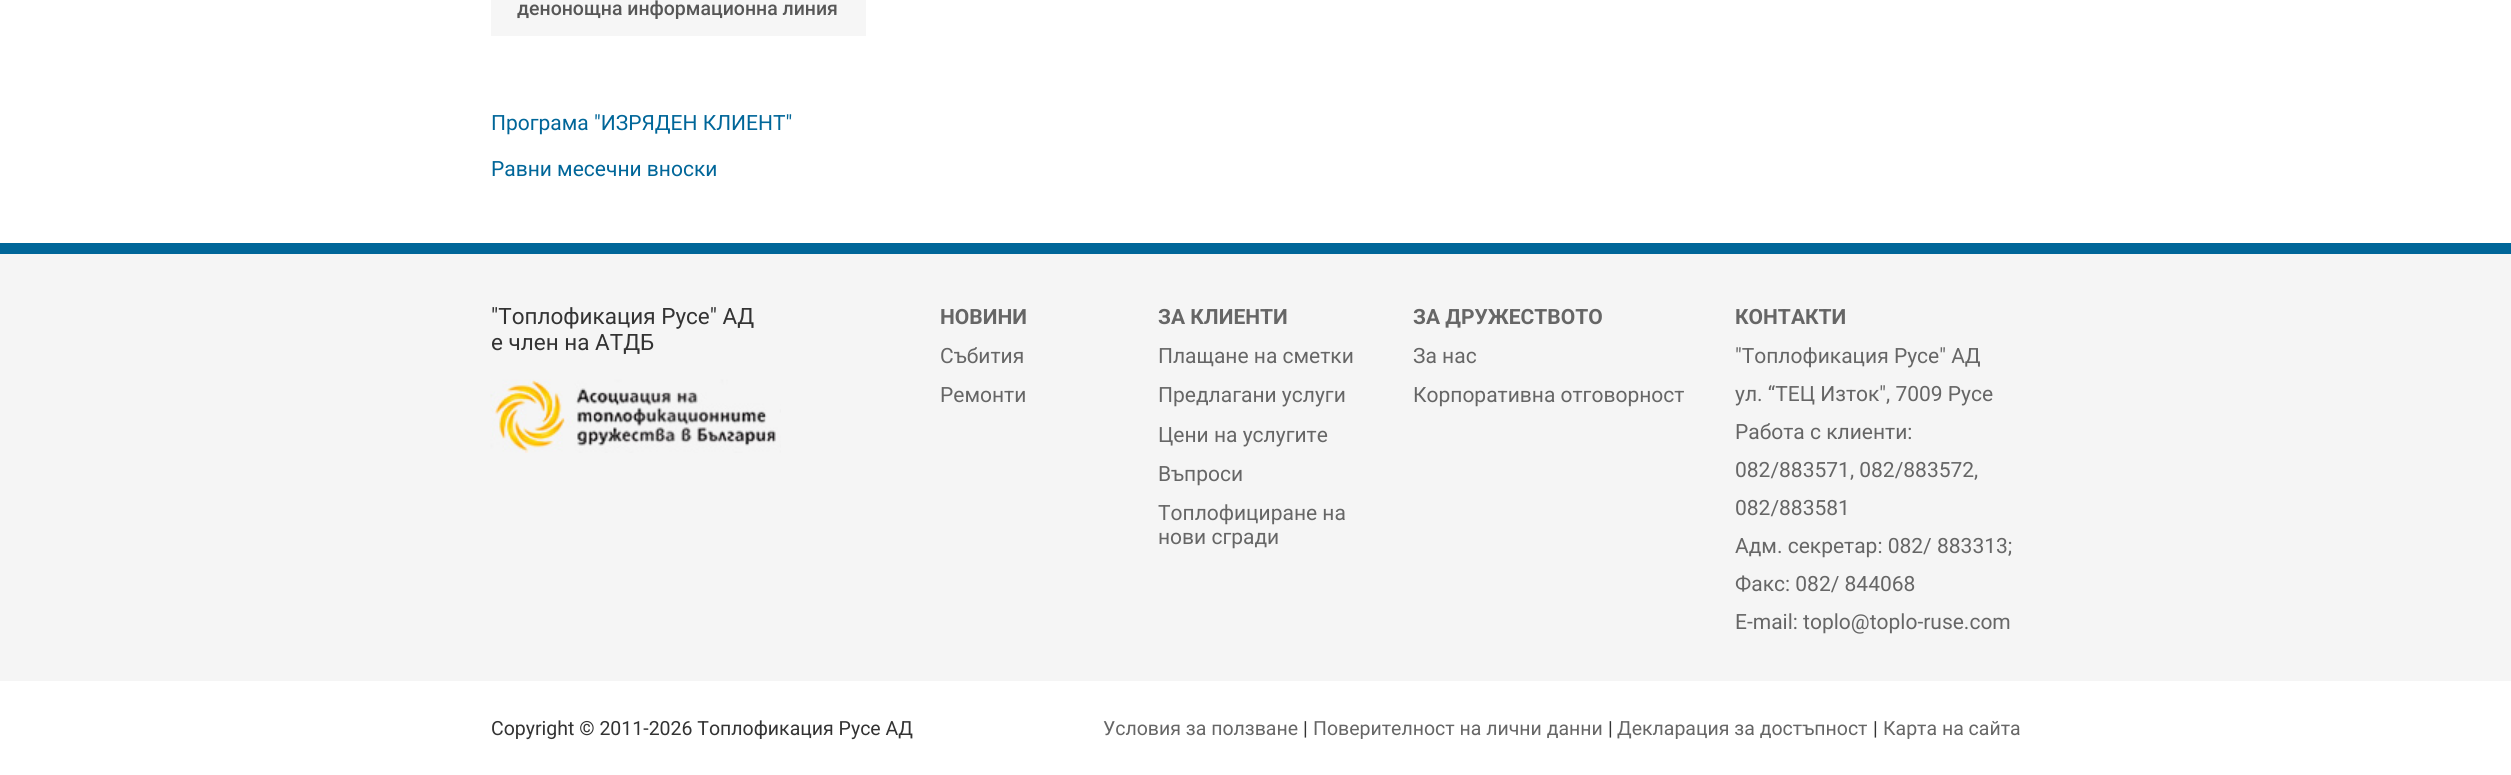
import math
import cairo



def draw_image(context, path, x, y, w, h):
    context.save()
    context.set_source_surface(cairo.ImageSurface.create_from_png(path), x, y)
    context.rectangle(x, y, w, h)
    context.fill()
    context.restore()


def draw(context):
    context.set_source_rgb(1, 1, 1)
    context.paint()
    context.set_source_rgb(246 / 255, 246 / 255, 246 / 255)
    context.rectangle(491, 0, 375, 36)
    context.fill()
    context.set_source_rgb(245 / 255, 245 / 255, 245 / 255)
    context.rectangle(0, 254, 2511, 427)
    context.fill()
    context.set_source_rgb(0, 102 / 255, 153 / 255)
    context.rectangle(0, 243, 2511, 11)
    context.fill()
    draw_image(context, "images/1.png", 490, 379, 291, 74)
    context.select_font_face("Roboto Medium")
    context.set_font_size(19.5)
    context.set_source_rgb(87 / 255, 87 / 255, 87 / 255)
    context.move_to(517, 15)
    context.show_text("денонощна информационна линия")
    context.select_font_face("Roboto")
    context.set_font_size(21)
    context.set_source_rgb(0, 102 / 255, 153 / 255)
    context.move_to(491, 130)
    context.show_text("Програма \"ИЗРЯДЕН КЛИЕНТ\"")
    context.move_to(491, 176)
    context.show_text("Равни месечни вноски")
    context.set_font_size(22.5)
    context.set_source_rgb(51 / 255, 51 / 255, 51 / 255)
    context.move_to(491, 324)
    context.show_text("\"Топлофикация Русе\" АД")
    context.move_to(491, 350)
    context.show_text("е член на АТДБ")
    context.select_font_face("Roboto", cairo.FontSlant.NORMAL, cairo.FontWeight.BOLD)
    context.set_font_size(21)
    context.set_source_rgb(102 / 255, 102 / 255, 102 / 255)
    context.move_to(940, 324)
    context.show_text("НОВИНИ")
    context.select_font_face("Roboto")
    context.move_to(940, 363)
    context.show_text("Събития")
    context.move_to(940, 402)
    context.show_text("Ремонти")
    context.select_font_face("Roboto", cairo.FontSlant.NORMAL, cairo.FontWeight.BOLD)
    context.move_to(1158, 324)
    context.show_text("ЗА КЛИЕНТИ")
    context.select_font_face("Roboto")
    context.move_to(1158, 363)
    context.show_text("Плащане на сметки")
    context.move_to(1158, 402)
    context.show_text("Предлагани услуги")
    context.move_to(1158, 442)
    context.show_text("Цени на услугите")
    context.move_to(1158, 481)
    context.show_text("Въпроси")
    context.move_to(1158, 520)
    context.show_text("Топлофициране на")
    context.move_to(1158, 544)
    context.show_text("нови сгради")
    context.select_font_face("Roboto", cairo.FontSlant.NORMAL, cairo.FontWeight.BOLD)
    context.move_to(1413, 324)
    context.show_text("ЗА ДРУЖЕСТВОТО")
    context.select_font_face("Roboto")
    context.move_to(1413, 363)
    context.show_text("За нас")
    context.move_to(1413, 402)
    context.show_text("Корпоративна отговорност")
    context.select_font_face("Roboto", cairo.FontSlant.NORMAL, cairo.FontWeight.BOLD)
    context.move_to(1735, 324)
    context.show_text("КОНТАКТИ")
    context.select_font_face("Roboto")
    context.move_to(1735, 363)
    context.show_text("\"Топлофикация Русе\" АД")
    context.move_to(1735, 401)
    context.show_text("ул. “ТЕЦ Изток\", 7009 Русе")
    context.move_to(1735, 439)
    context.show_text("Работа с клиенти:")
    context.move_to(1735, 477)
    context.show_text("082/883571, 082/883572,")
    context.move_to(1735, 515)
    context.show_text("082/883581")
    context.move_to(1735, 553)
    context.show_text("Адм. секретар: 082/ 883313;")
    context.move_to(1735, 591)
    context.show_text("Факс: 082/ 844068")
    context.move_to(1735, 629)
    context.show_text("E-mail: toplo@toplo-ruse.com")
    context.set_font_size(19.5)
    context.set_source_rgb(51 / 255, 51 / 255, 51 / 255)
    context.move_to(491, 735)
    context.show_text("Copyright © 2011-2026 Топлофикация Русе АД")
    context.set_source_rgb(102 / 255, 102 / 255, 102 / 255)
    context.move_to(1103, 735)
    context.show_text("Условия за ползване")
    context.set_source_rgb(51 / 255, 51 / 255, 51 / 255)
    context.move_to(1303, 735)
    context.show_text("|")
    context.set_source_rgb(102 / 255, 102 / 255, 102 / 255)
    context.move_to(1313, 735)
    context.show_text("Поверителност на лични данни")
    context.set_source_rgb(51 / 255, 51 / 255, 51 / 255)
    context.move_to(1608, 735)
    context.show_text("|")
    context.set_source_rgb(102 / 255, 102 / 255, 102 / 255)
    context.move_to(1617, 735)
    context.show_text("Декларация за достъпност")
    context.set_source_rgb(51 / 255, 51 / 255, 51 / 255)
    context.move_to(1873, 735)
    context.show_text("|")
    context.set_source_rgb(102 / 255, 102 / 255, 102 / 255)
    context.move_to(1883, 735)
    context.show_text("Карта на сайта")


surface = cairo.ImageSurface(cairo.Format.RGB24, 2511, 775)
context = cairo.Context(surface)
options = cairo.FontOptions()
options.set_hint_metrics(cairo.HintMetrics.OFF)
options.set_hint_style(cairo.HintStyle.NONE)
context.set_font_options(options)
context.set_miter_limit(4)
draw(context)
surface.write_to_png("out.png")
